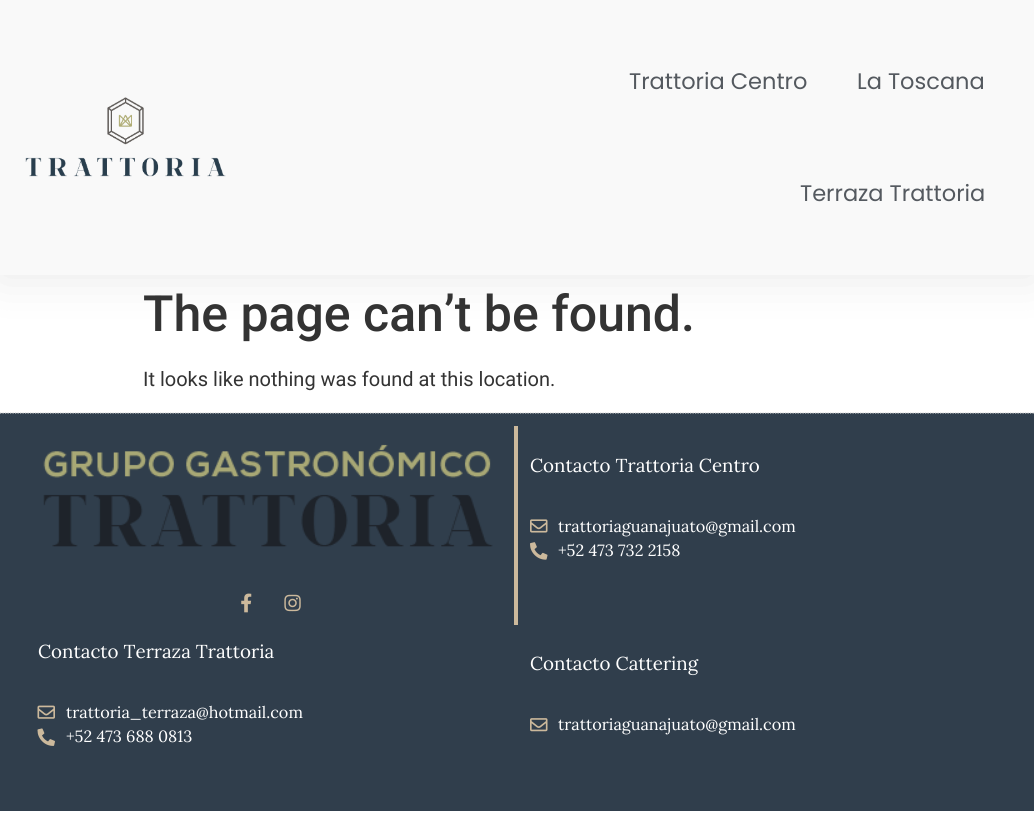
import math
import cairo



def rounded_rect(context, x, y, w, h, r):
    context.new_sub_path()
    for i, (u, v) in enumerate([(x + w - r, y + h - r), (x + r, y + h - r), (x + r, y + r), (x + w - r, y + r)]):
        context.arc(u, v, r, i * math.pi / 2, (i + 1) * math.pi / 2)
    context.close_path()


def draw_shadow(context, x, y, w, h, r, blur, alpha):
    context.push_group_with_content(cairo.Content.ALPHA)
    context.set_operator(cairo.Operator.SOURCE)
    for i in range(15, -16, -2):
        e = blur * i / 6
        if min(w, h) + 2 * e > 0:
            context.set_source_rgba(0, 0, 0, alpha * math.erfc((i - 1) / 8.5) / 2)
            rounded_rect(context, x - e, y - e, w + 2 * e, h + 2 * e, max(0, min(r + e + blur * .6, min(w, h) / 2 + e)))
            context.fill()
    context.mask(context.pop_group())


def draw_image(context, path, x, y, w, h):
    context.save()
    context.set_source_surface(cairo.ImageSurface.create_from_png(path), x, y)
    context.rectangle(x, y, w, h)
    context.fill()
    context.restore()


def draw(context):
    context.set_source_rgb(1, 1, 1)
    context.paint()
    context.set_source_rgb(0, 0, 0)
    draw_shadow(context, 0, 0, 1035, 275, 0, 24, 0.1)
    context.set_source_rgb(249 / 255, 249 / 255, 249 / 255)
    context.rectangle(0, 0, 1034, 275)
    context.fill()
    draw_image(context, "images/1.png", 25, 97, 201, 80)
    context.set_source_rgb(48 / 255, 62 / 255, 76 / 255)
    context.rectangle(0, 413, 1034, 398)
    context.fill()
    context.new_path()
    context.move_to(0, 413)
    context.line_to(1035, 413)
    context.set_source_rgb(214 / 255, 214 / 255, 214 / 255)
    context.set_line_width(1.2)
    context.set_dash([1.25, 1.25])
    context.stroke()
    context.set_source_rgb(204 / 255, 185 / 255, 156 / 255)
    context.rectangle(514, 426, 4, 199)
    context.fill()
    draw_image(context, "images/2.png", 43, 444, 450, 103)
    draw_image(context, "images/3.png", 241, 593, 11, 20)
    draw_image(context, "images/4.png", 284, 594, 17, 18)
    draw_image(context, "images/5.png", 530, 519, 18, 14)
    draw_image(context, "images/6.png", 530, 542, 18, 18)
    draw_image(context, "images/7.png", 37, 705, 18, 14)
    draw_image(context, "images/8.png", 37, 728, 18, 18)
    draw_image(context, "images/9.png", 530, 718, 18, 14)
    context.select_font_face("Poppins")
    context.set_font_size(22.5)
    context.set_source_rgb(84 / 255, 89 / 255, 95 / 255)
    context.move_to(629, 89)
    context.show_text("Trattoria Centro")
    context.move_to(857, 89)
    context.show_text("La Toscana")
    context.move_to(800, 201)
    context.show_text("Terraza Trattoria")
    context.select_font_face("Roboto Medium")
    context.set_font_size(50)
    context.set_source_rgb(51 / 255, 51 / 255, 51 / 255)
    context.move_to(143, 331)
    context.show_text("The page can’t be found.")
    context.select_font_face("Roboto")
    context.set_font_size(20)
    context.move_to(143, 386)
    context.show_text("It looks like nothing was found at this location.")
    context.select_font_face("Lora")
    context.set_font_size(18.75)
    context.set_source_rgb(1, 1, 1)
    context.move_to(530, 472)
    context.show_text("Contacto Trattoria Centro")
    context.set_font_size(16.25)
    context.move_to(558, 532)
    context.show_text("trattoriaguanajuato@gmail.com")
    context.move_to(558, 556)
    context.show_text("+52 473 732 2158")
    context.set_font_size(18.75)
    context.move_to(38, 658)
    context.show_text("Contacto Terraza Trattoria")
    context.set_font_size(16.25)
    context.move_to(66, 718)
    context.show_text("trattoria_terraza@hotmail.com")
    context.move_to(66, 742)
    context.show_text("+52 473 688 0813")
    context.set_font_size(18.75)
    context.move_to(530, 670)
    context.show_text("Contacto Cattering")
    context.set_font_size(16.25)
    context.move_to(558, 730)
    context.show_text("trattoriaguanajuato@gmail.com")


surface = cairo.ImageSurface(cairo.Format.RGB24, 1034, 837)
context = cairo.Context(surface)
options = cairo.FontOptions()
options.set_hint_metrics(cairo.HintMetrics.OFF)
options.set_hint_style(cairo.HintStyle.NONE)
context.set_font_options(options)
context.set_miter_limit(4)
draw(context)
surface.write_to_png("out.png")
